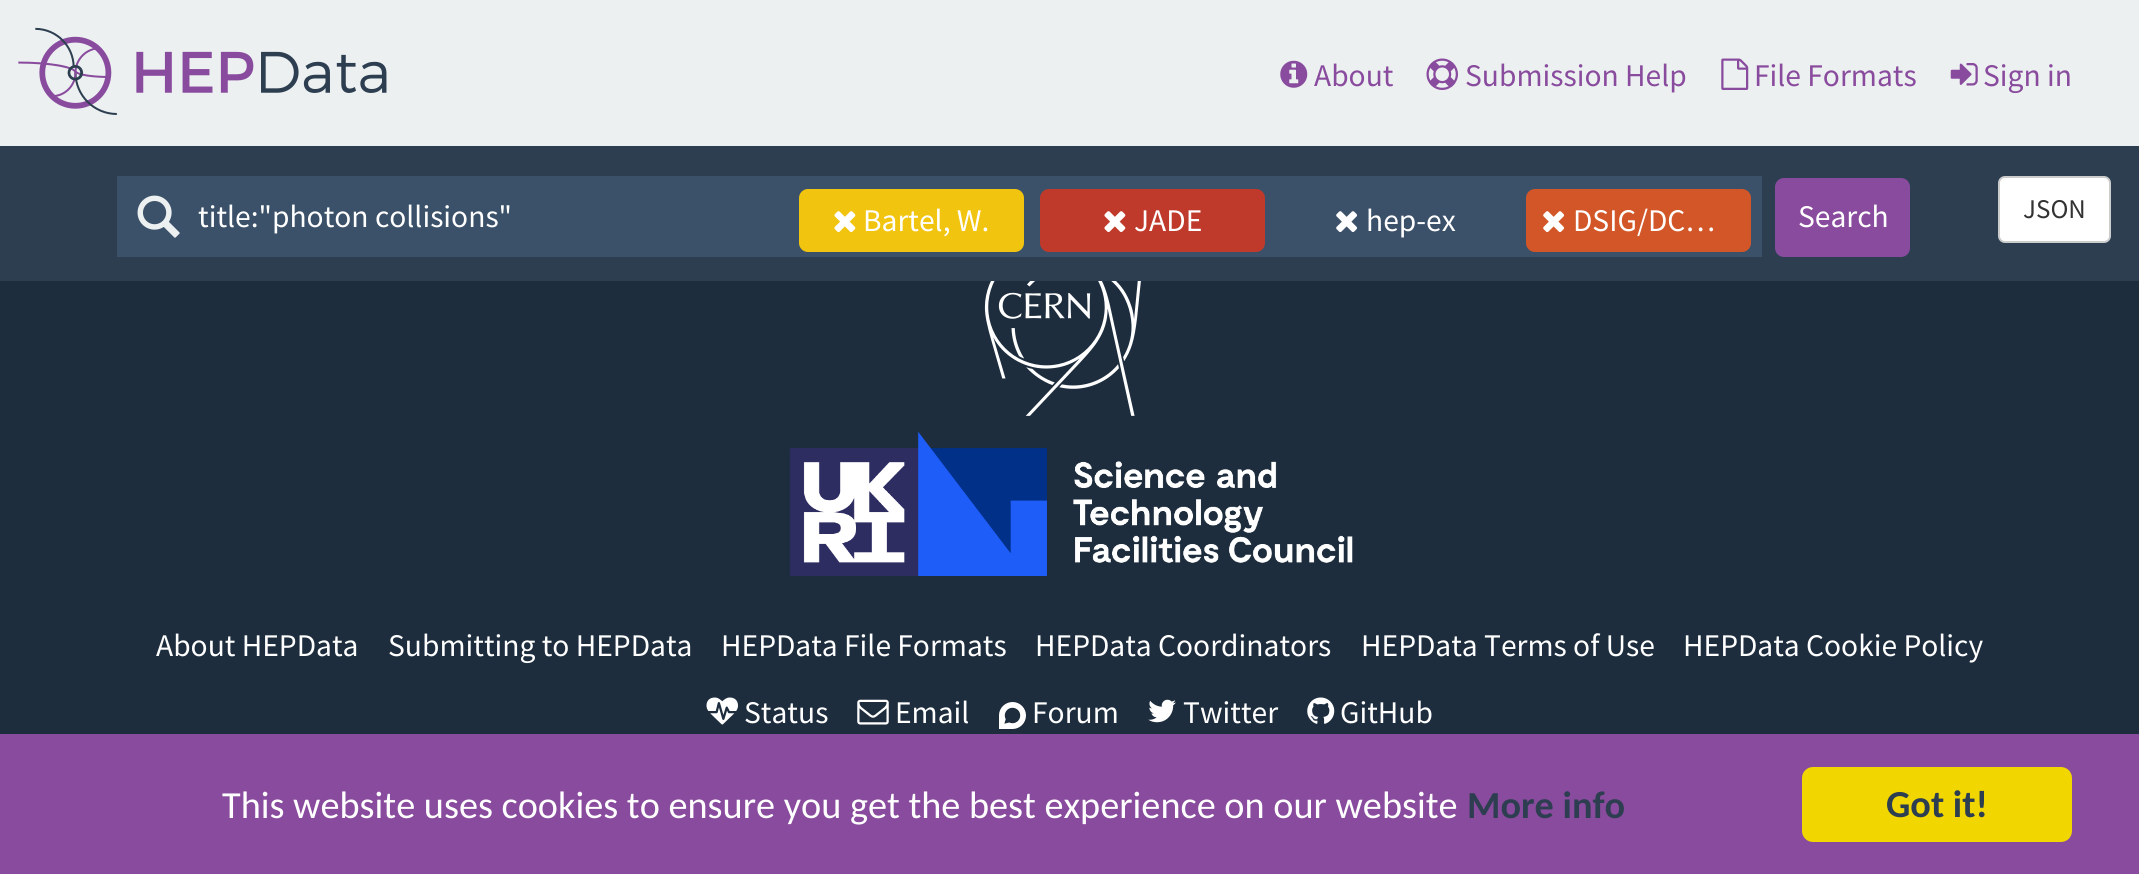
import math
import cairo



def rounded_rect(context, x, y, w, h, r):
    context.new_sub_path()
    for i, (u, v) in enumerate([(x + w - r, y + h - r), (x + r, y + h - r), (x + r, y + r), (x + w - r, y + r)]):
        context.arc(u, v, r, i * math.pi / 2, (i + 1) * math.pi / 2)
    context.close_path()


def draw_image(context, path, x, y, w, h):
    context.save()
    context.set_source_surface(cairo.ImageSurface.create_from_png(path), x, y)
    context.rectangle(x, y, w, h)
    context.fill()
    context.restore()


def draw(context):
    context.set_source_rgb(29 / 255, 45 / 255, 61 / 255)
    context.paint()
    context.set_source_rgb(236 / 255, 240 / 255, 241 / 255)
    context.rectangle(0, 0, 2139, 146)
    context.fill()
    draw_image(context, "images/1.png", 18, 27, 369, 88)
    draw_image(context, "images/2.png", 1280, 60, 28, 28)
    draw_image(context, "images/3.png", 1426, 58, 32, 32)
    draw_image(context, "images/4.png", 1721, 58, 28, 32)
    draw_image(context, "images/5.png", 1950, 63, 28, 23)
    context.set_source_rgb(44 / 255, 62 / 255, 80 / 255)
    context.rectangle(0, 146, 2139, 135)
    context.fill()
    context.set_source_rgb(59 / 255, 81 / 255, 105 / 255)
    context.rectangle(117, 176, 1645, 81)
    context.fill()
    draw_image(context, "images/6.png", 137, 195, 43, 43)
    context.set_source_rgb(241 / 255, 196 / 255, 15 / 255)
    rounded_rect(context, 799, 189, 225, 63, 9)
    context.fill()
    draw_image(context, "images/7.png", 834, 211, 22, 22)
    context.set_source_rgb(192 / 255, 58 / 255, 43 / 255)
    rounded_rect(context, 1040, 189, 225, 63, 9)
    context.fill()
    draw_image(context, "images/8.png", 1104, 211, 22, 22)
    draw_image(context, "images/9.png", 1336, 211, 22, 22)
    context.set_source_rgb(210 / 255, 86 / 255, 39 / 255)
    rounded_rect(context, 1526, 189, 225, 63, 9)
    context.fill()
    draw_image(context, "images/10.png", 1543, 211, 22, 22)
    context.set_source_rgb(137 / 255, 75 / 255, 157 / 255)
    rounded_rect(context, 1775, 178, 135, 79, 9)
    context.fill()
    context.set_source_rgb(1, 1, 1)
    rounded_rect(context, 1999, 177, 111, 65, 6)
    context.fill_preserve()
    context.set_source_rgb(204 / 255, 204 / 255, 204 / 255)
    context.stroke()
    draw_image(context, "images/11.png", 984, 281, 157, 135)
    draw_image(context, "images/12.png", 789, 432, 564, 144)
    draw_image(context, "images/13.png", 706, 697, 32, 28)
    draw_image(context, "images/14.png", 857, 699, 32, 26)
    draw_image(context, "images/15.png", 999, 702, 27, 27)
    draw_image(context, "images/16.png", 1148, 699, 28, 24)
    draw_image(context, "images/17.png", 1307, 697, 28, 27)
    context.set_source_rgb(137 / 255, 75 / 255, 157 / 255)
    context.rectangle(0, 734, 2139, 140)
    context.fill()
    context.set_source_rgb(241 / 255, 214 / 255, 0)
    rounded_rect(context, 1802, 767, 270, 75, 11)
    context.fill()
    context.select_font_face("Source Sans Pro")
    context.set_font_size(31.5)
    context.set_source_rgb(137 / 255, 75 / 255, 157 / 255)
    context.move_to(1314, 86)
    context.show_text("About")
    context.move_to(1465, 86)
    context.show_text("Submission Help")
    context.move_to(1754, 86)
    context.show_text("File Formats")
    context.move_to(1983, 86)
    context.show_text("Sign in")
    context.set_source_rgb(1, 1, 1)
    context.move_to(198, 227)
    context.show_text("title:\"photon collisions\"")
    context.move_to(863, 231)
    context.show_text("Bartel, W.")
    context.move_to(1134, 231)
    context.show_text("JADE")
    context.move_to(1366, 231)
    context.show_text("hep-ex")
    context.move_to(1573, 231)
    context.show_text("DSIG/DC…")
    context.move_to(1798, 227)
    context.show_text("Search")
    context.set_font_size(27)
    context.set_source_rgb(51 / 255, 51 / 255, 51 / 255)
    context.move_to(2023, 218)
    context.show_text("JSON")
    context.set_font_size(31.5)
    context.set_source_rgb(1, 1, 1)
    context.move_to(156, 656)
    context.show_text("About HEPData")
    context.move_to(388, 656)
    context.show_text("Submitting to HEPData")
    context.move_to(721, 656)
    context.show_text("HEPData File Formats")
    context.move_to(1035, 656)
    context.show_text("HEPData Coordinators")
    context.move_to(1361, 656)
    context.show_text("HEPData Terms of Use")
    context.move_to(1683, 656)
    context.show_text("HEPData Cookie Policy")
    context.move_to(744, 723)
    context.show_text("Status")
    context.move_to(895, 723)
    context.show_text("Email")
    context.move_to(1032, 723)
    context.show_text("Forum")
    context.move_to(1183, 723)
    context.show_text("Twitter")
    context.move_to(1340, 723)
    context.show_text("GitHub")
    context.select_font_face("Carlito")
    context.set_font_size(38.25)
    context.move_to(222, 818)
    context.show_text("This website uses cookies to ensure you get the best experience on our website")
    context.select_font_face("Carlito", cairo.FontSlant.NORMAL, cairo.FontWeight.BOLD)
    context.set_source_rgb(44 / 255, 62 / 255, 80 / 255)
    context.move_to(1467, 818)
    context.show_text("More info")
    context.move_to(1886, 817)
    context.show_text("Got it!")


surface = cairo.ImageSurface(cairo.Format.RGB24, 2139, 874)
context = cairo.Context(surface)
options = cairo.FontOptions()
options.set_hint_metrics(cairo.HintMetrics.OFF)
options.set_hint_style(cairo.HintStyle.NONE)
context.set_font_options(options)
context.set_miter_limit(4)
draw(context)
surface.write_to_png("out.png")
